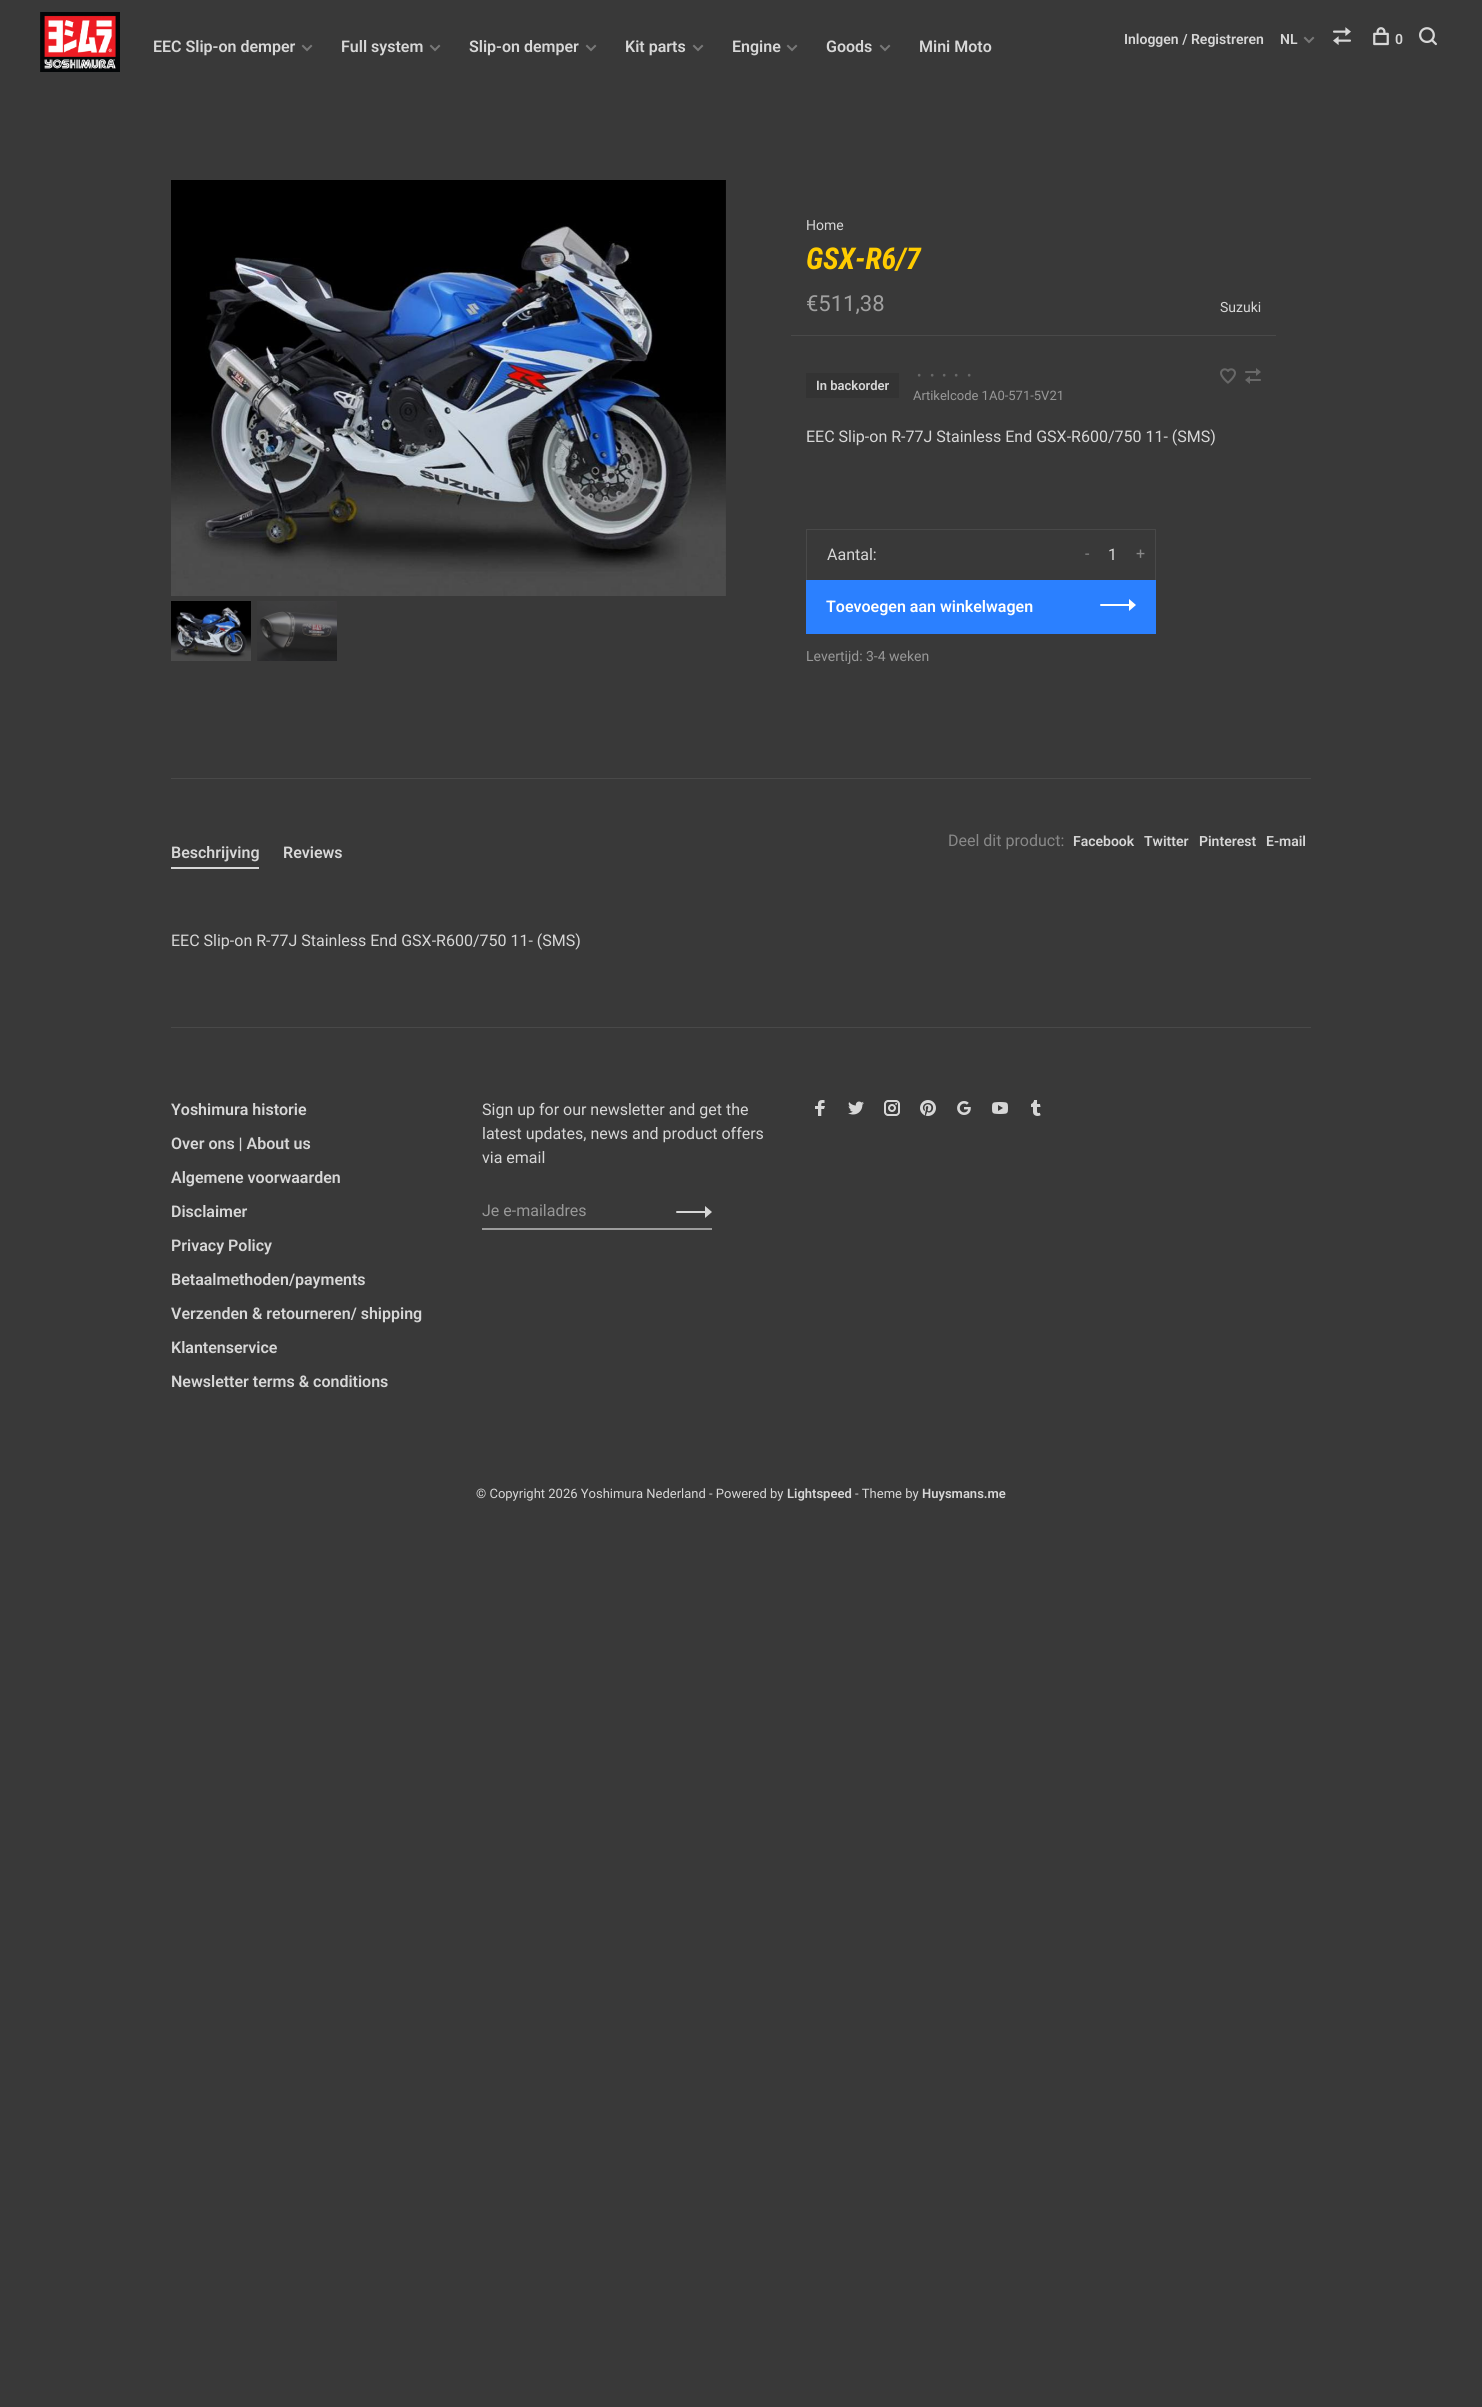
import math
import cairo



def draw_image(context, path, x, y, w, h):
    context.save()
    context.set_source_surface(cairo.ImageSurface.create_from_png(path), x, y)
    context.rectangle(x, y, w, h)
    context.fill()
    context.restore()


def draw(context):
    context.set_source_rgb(57 / 255, 57 / 255, 57 / 255)
    context.paint()
    draw_image(context, "images/1.png", 40, 12, 80, 60)
    draw_image(context, "images/2.png", 301, 44, 12, 8)
    draw_image(context, "images/2.png", 429, 44, 12, 8)
    draw_image(context, "images/2.png", 585, 44, 12, 8)
    draw_image(context, "images/2.png", 692, 44, 12, 8)
    draw_image(context, "images/2.png", 786, 44, 12, 8)
    draw_image(context, "images/2.png", 879, 44, 12, 8)
    draw_image(context, "images/2.png", 1303, 36, 12, 8)
    draw_image(context, "images/3.png", 1333, 27, 18, 18)
    draw_image(context, "images/4.png", 1373, 27, 16, 19)
    draw_image(context, "images/5.png", 1419, 27, 18, 19)
    context.set_source_rgb(73 / 255, 73 / 255, 73 / 255)
    context.rectangle(171, 778, 1140, 1)
    context.fill()
    draw_image(context, "images/6.png", 171, 180, 555, 416)
    draw_image(context, "images/7.png", 171, 601, 80, 60)
    draw_image(context, "images/8.png", 257, 601, 80, 60)
    context.rectangle(791, 335, 485, 1)
    context.fill()
    context.set_source_rgb(51 / 255, 51 / 255, 51 / 255)
    context.rectangle(806, 373, 93, 25)
    context.fill()
    draw_image(context, "images/9.png", 1220, 368, 16, 16)
    draw_image(context, "images/10.png", 1245, 368, 16, 16)
    context.set_source_rgb(73 / 255, 73 / 255, 73 / 255)
    context.new_path()
    context.move_to(806, 529)
    context.line_to(1156, 529)
    context.line_to(1155, 530)
    context.line_to(807, 530)
    context.close_path()
    context.fill()
    context.set_source_rgba(1, 1, 1, 0.08)
    context.new_path()
    context.move_to(1156, 529)
    context.line_to(1156, 580)
    context.line_to(1155, 580)
    context.line_to(1155, 530)
    context.close_path()
    context.fill()
    context.new_path()
    context.move_to(806, 580)
    context.line_to(806, 529)
    context.line_to(807, 530)
    context.line_to(807, 580)
    context.close_path()
    context.fill()
    context.set_source_rgb(43 / 255, 128 / 255, 1)
    context.rectangle(806, 580, 350, 54)
    context.fill()
    context.set_source_rgb(1, 1, 1)
    context.new_path()
    context.move_to(1129, 604)
    context.line_to(1101, 604)
    context.line_to(1100, 604.5)
    context.curve_to(1100, 605, 1100, 606, 1101, 606)
    context.line_to(1129, 606)
    context.line_to(1129, 611)
    context.line_to(1136, 605)
    context.line_to(1129, 599)
    context.close_path()
    context.fill()
    context.set_source_rgb(73 / 255, 73 / 255, 73 / 255)
    context.rectangle(171, 1027, 1140, 1)
    context.fill()
    context.set_source_rgb(215 / 255, 215 / 255, 215 / 255)
    context.rectangle(171, 867, 88, 2)
    context.fill()
    context.set_source_rgb(156 / 255, 156 / 255, 156 / 255)
    context.rectangle(482, 1228, 230, 2)
    context.fill()
    context.set_source_rgb(215 / 255, 215 / 255, 215 / 255)
    context.new_path()
    context.move_to(705, 1211)
    context.line_to(677, 1211)
    context.line_to(676, 1211.5)
    context.curve_to(676, 1212, 676, 1213, 677, 1213)
    context.line_to(705, 1213)
    context.line_to(705, 1218)
    context.line_to(712, 1212)
    context.line_to(705, 1206)
    context.close_path()
    context.fill()
    draw_image(context, "images/11.png", 815, 1100, 10, 16)
    draw_image(context, "images/12.png", 848, 1101, 16, 14)
    draw_image(context, "images/13.png", 884, 1100, 16, 16)
    draw_image(context, "images/14.png", 920, 1100, 16, 16)
    draw_image(context, "images/15.png", 957, 1101, 14, 14)
    draw_image(context, "images/16.png", 992, 1102, 16, 12)
    draw_image(context, "images/17.png", 1031, 1100, 10, 16)
    context.select_font_face("Roboto SemiBold")
    context.set_font_size(16)
    context.move_to(153, 52)
    context.show_text("EEC Slip-on demper")
    context.move_to(341, 52)
    context.show_text("Full system")
    context.move_to(469, 52)
    context.show_text("Slip-on demper")
    context.move_to(625, 52)
    context.show_text("Kit parts")
    context.move_to(732, 52)
    context.show_text("Engine")
    context.move_to(826, 52)
    context.show_text("Goods")
    context.move_to(919, 52)
    context.show_text("Mini Moto")
    context.set_font_size(14)
    context.move_to(1124, 44)
    context.show_text("Inloggen / Registreren")
    context.move_to(1280, 44)
    context.show_text("NL")
    context.move_to(1395, 44)
    context.show_text("0")
    context.select_font_face("Roboto")
    context.move_to(806, 230)
    context.show_text("Home")
    context.select_font_face("Roboto Condensed", cairo.FontSlant.ITALIC, cairo.FontWeight.BOLD)
    context.set_font_size(30)
    context.set_source_rgb(1, 204 / 255, 0)
    context.move_to(806, 269)
    context.show_text("GSX-R6/7")
    context.select_font_face("Roboto")
    context.set_font_size(22)
    context.set_source_rgb(160 / 255, 160 / 255, 160 / 255)
    context.move_to(806, 311)
    context.show_text("€511,38")
    context.set_font_size(14)
    context.set_source_rgb(215 / 255, 215 / 255, 215 / 255)
    context.move_to(1220, 312)
    context.show_text("Suzuki")
    context.select_font_face("Roboto SemiBold")
    context.set_font_size(13)
    context.move_to(816, 390)
    context.show_text("In backorder")
    context.select_font_face("Roboto")
    context.set_source_rgb(104 / 255, 104 / 255, 104 / 255)
    context.move_to(917, 380)
    context.show_text("•")
    context.move_to(930, 380)
    context.show_text("•")
    context.move_to(942, 380)
    context.show_text("•")
    context.move_to(954, 380)
    context.show_text("•")
    context.move_to(967, 380)
    context.show_text("•")
    context.set_source_rgb(152 / 255, 152 / 255, 152 / 255)
    context.move_to(913, 400)
    context.show_text("Artikelcode 1A0-571-5V21")
    context.set_font_size(16)
    context.set_source_rgb(215 / 255, 215 / 255, 215 / 255)
    context.move_to(806, 442)
    context.show_text("EEC Slip-on R-77J Stainless End GSX-R600/750 11- (SMS)")
    context.move_to(827, 560)
    context.show_text("Aantal:")
    context.move_to(1108, 560)
    context.show_text("1")
    context.set_source_rgb(136 / 255, 136 / 255, 136 / 255)
    context.move_to(1085, 559)
    context.show_text("-")
    context.move_to(1136, 559)
    context.show_text("+")
    context.select_font_face("Roboto SemiBold")
    context.set_source_rgb(1, 1, 1)
    context.move_to(826, 612)
    context.show_text("Toevoegen aan winkelwagen")
    context.select_font_face("Roboto")
    context.set_font_size(14)
    context.set_source_rgb(152 / 255, 152 / 255, 152 / 255)
    context.move_to(806, 661)
    context.show_text("Levertijd: 3-4 weken")
    context.set_font_size(16)
    context.set_source_rgb(136 / 255, 136 / 255, 136 / 255)
    context.move_to(948, 846)
    context.show_text("Deel dit product:")
    context.select_font_face("Roboto SemiBold")
    context.set_font_size(14)
    context.set_source_rgb(215 / 255, 215 / 255, 215 / 255)
    context.move_to(1073, 846)
    context.show_text("Facebook")
    context.move_to(1144, 846)
    context.show_text("Twitter")
    context.move_to(1199, 846)
    context.show_text("Pinterest")
    context.move_to(1266, 846)
    context.show_text("E-mail")
    context.set_font_size(16)
    context.move_to(171, 858)
    context.show_text("Beschrijving")
    context.move_to(283, 858)
    context.show_text("Reviews")
    context.select_font_face("Roboto")
    context.move_to(171, 946)
    context.show_text("EEC Slip-on R-77J Stainless End GSX-R600/750 11- (SMS)")
    context.select_font_face("Roboto SemiBold")
    context.move_to(171, 1115)
    context.show_text("Yoshimura historie")
    context.move_to(171, 1149)
    context.show_text("Over ons | About us")
    context.move_to(171, 1183)
    context.show_text("Algemene voorwaarden")
    context.move_to(171, 1217)
    context.show_text("Disclaimer")
    context.move_to(171, 1251)
    context.show_text("Privacy Policy")
    context.move_to(171, 1285)
    context.show_text("Betaalmethoden/payments")
    context.move_to(171, 1319)
    context.show_text("Verzenden & retourneren/ shipping")
    context.move_to(171, 1353)
    context.show_text("Klantenservice")
    context.move_to(171, 1387)
    context.show_text("Newsletter terms & conditions")
    context.select_font_face("Roboto")
    context.move_to(482, 1115)
    context.show_text("Sign up for our newsletter and get the")
    context.move_to(482, 1139)
    context.show_text("latest updates, news and product offers")
    context.move_to(482, 1163)
    context.show_text("via email")
    context.set_source_rgb(152 / 255, 152 / 255, 152 / 255)
    context.move_to(482, 1216)
    context.show_text("Je e-mailadres")
    context.set_font_size(13)
    context.set_source_rgb(215 / 255, 215 / 255, 215 / 255)
    context.move_to(476, 1498)
    context.show_text("© Copyright 2026 Yoshimura Nederland - Powered by")
    context.select_font_face("Roboto SemiBold")
    context.move_to(787, 1498)
    context.show_text("Lightspeed")
    context.select_font_face("Roboto")
    context.move_to(855, 1498)
    context.show_text("- Theme by")
    context.select_font_face("Roboto SemiBold")
    context.move_to(922, 1498)
    context.show_text("Huysmans.me")


surface = cairo.ImageSurface(cairo.Format.RGB24, 1482, 2407)
context = cairo.Context(surface)
options = cairo.FontOptions()
options.set_hint_metrics(cairo.HintMetrics.OFF)
options.set_hint_style(cairo.HintStyle.NONE)
context.set_font_options(options)
context.set_miter_limit(4)
draw(context)
surface.write_to_png("out.png")
